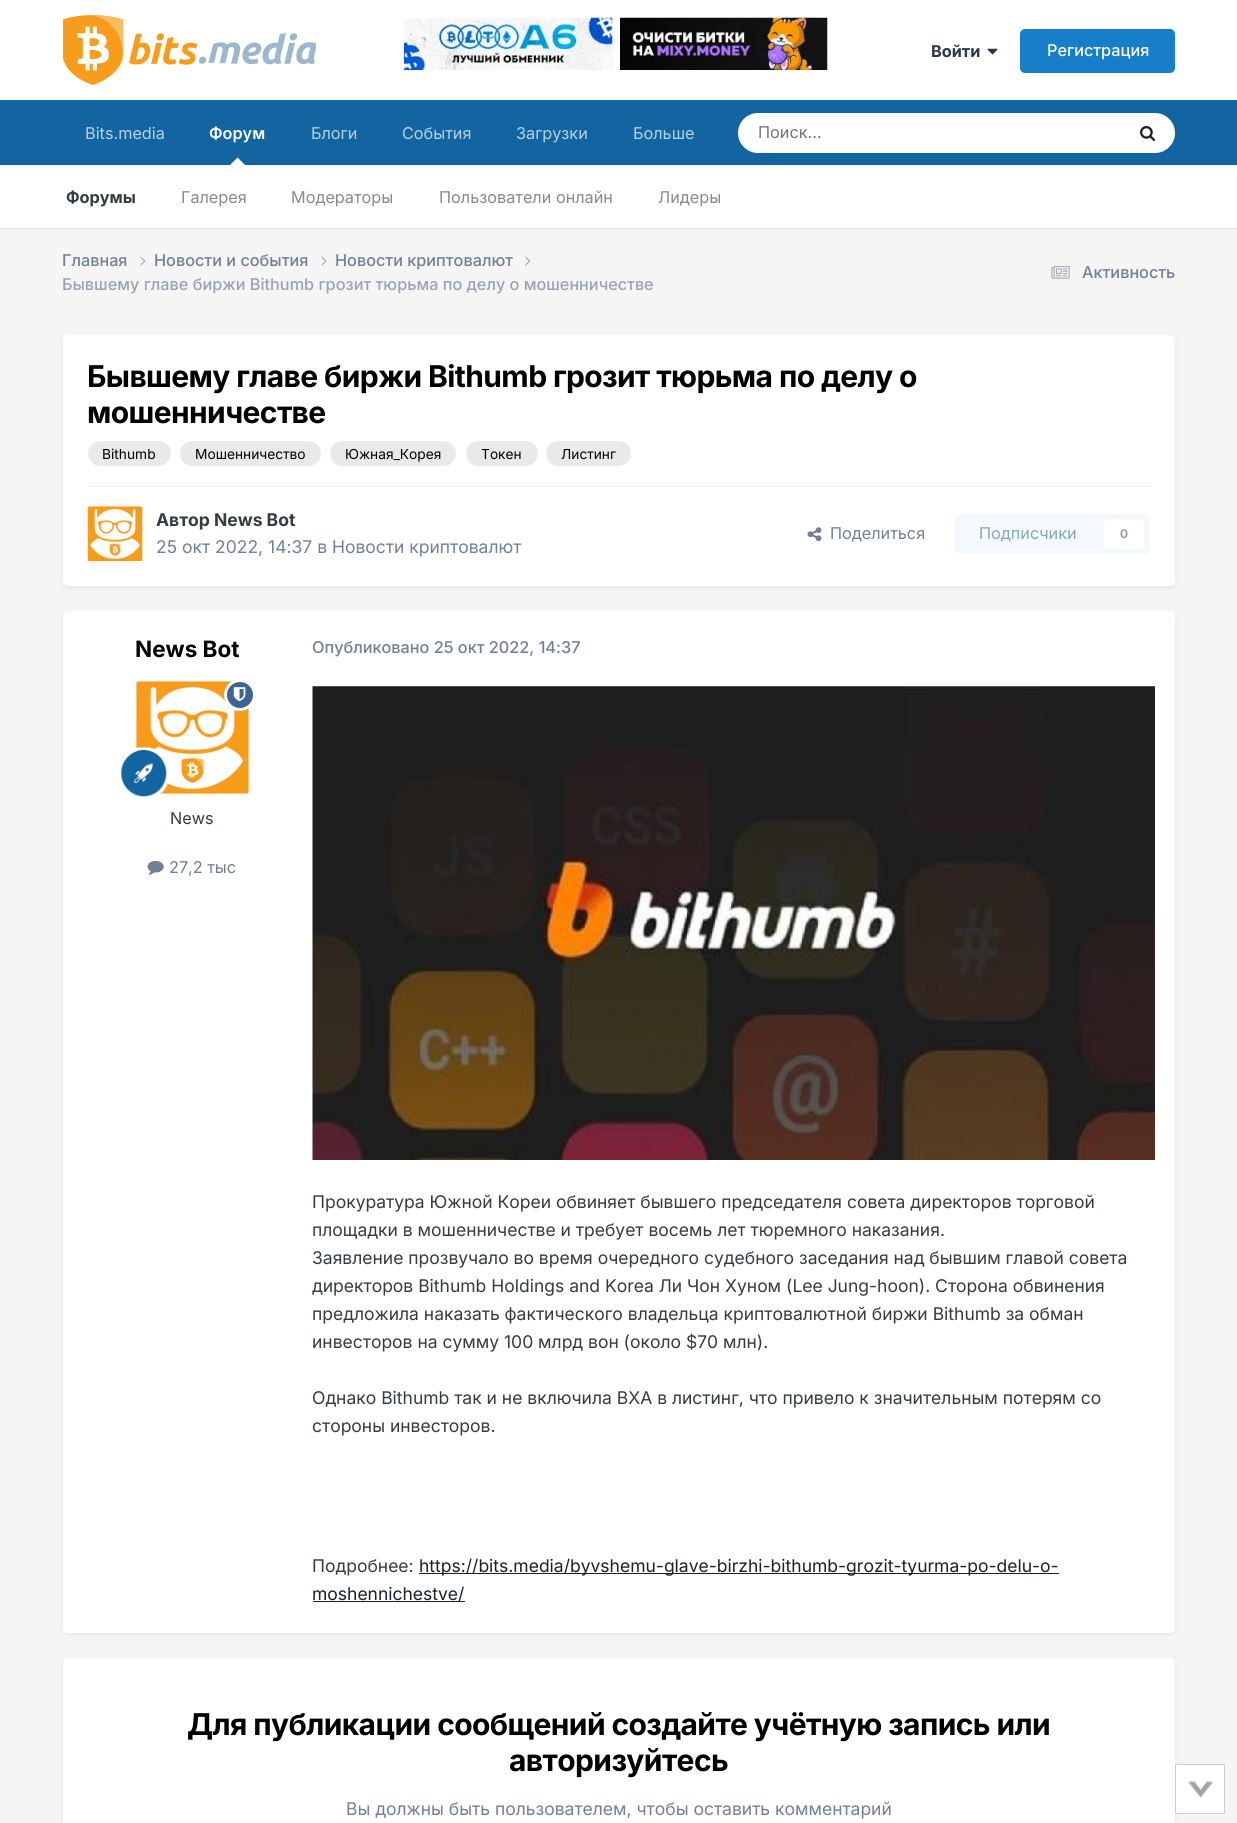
import math
import cairo



def draw_spaced(context, x, y, s, letter, word):
    context.move_to(x, y)
    for ch in s:
        context.show_text(ch)
        context.rel_move_to(letter + word * (ch == ' '), 0)


def rounded_rect(context, x, y, w, h, r):
    context.new_sub_path()
    for i, (u, v) in enumerate([(x + w - r, y + h - r), (x + r, y + h - r), (x + r, y + r), (x + w - r, y + r)]):
        context.arc(u, v, r, i * math.pi / 2, (i + 1) * math.pi / 2)
    context.close_path()


def draw_shadow(context, x, y, w, h, r, blur, alpha):
    context.push_group_with_content(cairo.Content.ALPHA)
    context.set_operator(cairo.Operator.SOURCE)
    for i in range(15, -16, -2):
        e = blur * i / 6
        if min(w, h) + 2 * e > 0:
            context.set_source_rgba(0, 0, 0, alpha * math.erfc((i - 1) / 8.5) / 2)
            rounded_rect(context, x - e, y - e, w + 2 * e, h + 2 * e, max(0, min(r + e + blur * .6, min(w, h) / 2 + e)))
            context.fill()
    context.mask(context.pop_group())


def draw_image(context, path, x, y, w, h):
    context.save()
    context.set_source_surface(cairo.ImageSurface.create_from_png(path), x, y)
    context.rectangle(x, y, w, h)
    context.fill()
    context.restore()


def draw(context):
    context.set_source_rgb(245 / 255, 245 / 255, 245 / 255)
    context.paint()
    context.set_source_rgb(1, 1, 1)
    context.rectangle(0, 0, 1237, 100)
    context.fill()
    draw_image(context, "images/1.png", 63, 15, 253, 70)
    context.set_source_rgb(247 / 255, 250 / 255, 252 / 255)
    context.rectangle(612, 18, 1, 52)
    context.fill()
    draw_image(context, "images/2.png", 403, 17, 210, 53)
    context.rectangle(827, 18, 1, 52)
    context.fill()
    draw_image(context, "images/3.png", 620, 17, 208, 53)
    draw_image(context, "images/4.png", 987, 48, 11, 7)
    context.set_source_rgb(23 / 255, 126 / 255, 201 / 255)
    rounded_rect(context, 1020, 29, 155, 44, 5)
    context.fill()
    context.set_source_rgb(18 / 255, 101 / 255, 161 / 255)
    context.rectangle(0, 100, 1237, 65)
    context.fill()
    context.set_source_rgb(0, 0, 0)
    draw_shadow(context, 0, 166, 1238, 63, 0, 1, 0.1)
    context.set_source_rgb(1, 1, 1)
    context.new_path()
    context.move_to(245, 165)
    context.line_to(230, 165)
    context.line_to(237.5, 157.5)
    context.close_path()
    context.fill()
    rounded_rect(context, 738, 113, 437, 40, 20)
    context.fill()
    draw_image(context, "images/5.png", 1140, 126, 16, 15)
    context.rectangle(0, 165, 1237, 63)
    context.fill()
    draw_image(context, "images/6.png", 140, 256, 6, 10)
    draw_image(context, "images/7.png", 321, 256, 6, 10)
    draw_image(context, "images/6.png", 525, 256, 6, 10)
    draw_image(context, "images/8.png", 1051, 266, 19, 13)
    context.set_source_rgb(45 / 255, 55 / 255, 72 / 255)
    draw_shadow(context, 64, 339, 1110, 249, 4, 2.5, 0.1)
    context.set_source_rgb(1, 1, 1)
    rounded_rect(context, 63, 335, 1112, 251, 5)
    context.fill()
    context.set_source_rgb(233 / 255, 233 / 255, 233 / 255)
    rounded_rect(context, 88, 441, 83, 25, 12.5)
    context.fill()
    rounded_rect(context, 180, 441, 141, 25, 12.5)
    context.fill()
    rounded_rect(context, 330, 441, 126, 25, 12.5)
    context.fill()
    rounded_rect(context, 466, 441, 72, 25, 12.5)
    context.fill()
    rounded_rect(context, 546, 441, 85, 25, 12.5)
    context.fill()
    context.set_source_rgb(239 / 255, 239 / 255, 240 / 255)
    context.rectangle(88, 486, 1062, 1)
    context.fill()
    draw_image(context, "images/9.png", 87, 506, 56, 56)
    draw_image(context, "images/10.png", 807, 527, 15, 15)
    context.set_source_rgb(244 / 255, 249 / 255, 253 / 255)
    rounded_rect(context, 955, 514, 195, 40, 5)
    context.fill()
    context.set_source_rgb(1, 1, 1)
    rounded_rect(context, 1104, 519, 40, 30, 5)
    context.fill()
    context.set_source_rgb(45 / 255, 55 / 255, 72 / 255)
    draw_shadow(context, 64, 615, 1110, 1019, 4, 2.5, 0.1)
    context.set_source_rgb(1, 1, 1)
    rounded_rect(context, 63, 611, 1112, 1022, 5)
    context.fill()
    draw_image(context, "images/12.png", 136, 681, 113, 113)
    context.set_source_rgb(61 / 255, 101 / 255, 148 / 255)
    context.arc(240, 695, 14.5, 0, 2 * math.pi)
    context.fill_preserve()
    context.set_source_rgb(1, 1, 1)
    context.set_line_width(3)
    context.stroke()
    draw_image(context, "images/11.png", 233, 687, 13, 15)
    draw_image(context, "images/13.png", 121, 747, 48, 50)
    draw_image(context, "images/14.png", 147, 860, 17, 15)
    draw_image(context, "images/15.png", 312, 686, 843, 474)
    context.set_source_rgb(26 / 255, 32 / 255, 44 / 255)
    context.rectangle(419, 1573, 640, 1)
    context.fill()
    context.rectangle(313, 1601, 152, 1)
    context.fill()
    context.set_source_rgb(45 / 255, 55 / 255, 72 / 255)
    draw_shadow(context, 64, 1661, 1110, 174, 4, 2.5, 0.1)
    context.set_source_rgb(1, 1, 1)
    rounded_rect(context, 63, 1658, 1112, 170, 5)
    context.fill()
    context.rectangle(1176, 1765, 48, 48)
    context.fill()
    draw_image(context, "images/16.png", 1188, 1781, 25, 17)
    context.rectangle(1175.5, 1764.5, 49, 49)
    context.set_source_rgb(204 / 255, 204 / 255, 204 / 255)
    context.set_line_width(1)
    context.stroke()
    context.select_font_face("Inter", cairo.FontSlant.NORMAL, cairo.FontWeight.BOLD)
    context.set_font_size(16.25)
    context.set_source_rgb(45 / 255, 55 / 255, 72 / 255)
    context.move_to(931, 57)
    context.show_text("Войти")
    context.select_font_face("Inter Medium")
    context.set_source_rgb(1, 1, 1)
    context.move_to(1047, 56)
    context.show_text("Регистрация")
    context.select_font_face("Inter SemiBold")
    context.move_to(209, 139)
    context.show_text("Форум")
    context.select_font_face("Inter", cairo.FontSlant.NORMAL, cairo.FontWeight.BOLD)
    context.set_source_rgb(53 / 255, 60 / 255, 65 / 255)
    context.move_to(66, 203)
    context.show_text("Форумы")
    context.select_font_face("Inter")
    context.set_source_rgb(134 / 255, 138 / 255, 141 / 255)
    context.move_to(181, 203)
    context.show_text("Галерея")
    context.move_to(291, 203)
    context.show_text("Модераторы")
    context.move_to(439, 203)
    context.show_text("Пользователи онлайн")
    context.move_to(658, 203)
    context.show_text("Лидеры")
    context.set_source_rgb(184 / 255, 209 / 255, 227 / 255)
    context.move_to(85, 139)
    context.show_text("Bits.media")
    context.move_to(311, 139)
    context.show_text("Блоги")
    context.move_to(402, 139)
    context.show_text("События")
    context.move_to(516, 139)
    context.show_text("Загрузки")
    context.move_to(633, 139)
    context.show_text("Больше")
    context.set_source_rgb(117 / 255, 117 / 255, 117 / 255)
    context.move_to(758, 138)
    context.show_text("Поиск...")
    context.select_font_face("Inter Medium")
    context.set_source_rgb(113 / 255, 128 / 255, 150 / 255)
    context.move_to(62, 266)
    context.show_text("Главная")
    context.move_to(154, 266)
    context.show_text("Новости и события")
    context.move_to(335, 266)
    context.show_text("Новости криптовалют")
    context.set_source_rgb(153 / 255, 163 / 255, 179 / 255)
    context.move_to(62, 290)
    context.show_text("Бывшему главе биржи Bithumb грозит тюрьма по делу о мошенничестве")
    context.set_source_rgb(113 / 255, 128 / 255, 150 / 255)
    context.move_to(1082, 278)
    context.show_text("Активность")
    context.select_font_face("Inter", cairo.FontSlant.NORMAL, cairo.FontWeight.BOLD)
    context.set_font_size(30)
    context.set_source_rgb(0, 0, 0)
    draw_spaced(context, 87, 387, "Бывшему главе биржи Bithumb грозит тюрьма по делу о", -0.6, 0)
    draw_spaced(context, 87, 423, "мошенничестве", -0.6, 0)
    context.select_font_face("Inter")
    context.set_font_size(13.75)
    context.move_to(102, 459)
    context.show_text("Bithumb")
    context.move_to(195, 459)
    context.show_text("Мошенничество")
    context.move_to(345, 459)
    context.show_text("Южная_Корея")
    context.move_to(481, 459)
    context.show_text("Токен")
    context.move_to(561, 459)
    context.show_text("Листинг")
    context.select_font_face("Inter", cairo.FontSlant.NORMAL, cairo.FontWeight.BOLD)
    context.set_font_size(17.5)
    context.set_source_rgb(53 / 255, 60 / 255, 65 / 255)
    context.move_to(156, 526)
    context.show_text("Автор News Bot")
    context.select_font_face("Inter")
    context.set_source_rgb(113 / 255, 128 / 255, 150 / 255)
    context.move_to(156, 553)
    context.show_text("25 окт 2022, 14:37 в Новости криптовалют")
    context.set_font_size(16.25)
    context.move_to(830, 539)
    context.show_text("Поделиться")
    context.set_source_rgb(135 / 255, 166 / 255, 188 / 255)
    context.move_to(979, 539)
    context.show_text("Подписчики")
    context.select_font_face("Inter", cairo.FontSlant.NORMAL, cairo.FontWeight.BOLD)
    context.set_font_size(12)
    context.set_source_rgb(154 / 255, 158 / 255, 160 / 255)
    context.move_to(1120, 538)
    context.show_text("0")
    context.set_font_size(22.5)
    context.set_source_rgb(0, 0, 0)
    context.move_to(135, 657)
    context.show_text("News Bot")
    context.select_font_face("Inter")
    context.set_font_size(16.25)
    context.set_source_rgb(53 / 255, 60 / 255, 65 / 255)
    context.move_to(170, 824)
    context.show_text("News")
    context.set_source_rgb(113 / 255, 128 / 255, 150 / 255)
    context.move_to(169, 873)
    context.show_text("27,2 тыс")
    context.select_font_face("Inter Medium")
    context.move_to(312, 653)
    context.show_text("Опубликовано 25 окт 2022, 14:37")
    context.select_font_face("Inter")
    context.set_font_size(17.5)
    context.set_source_rgb(53 / 255, 60 / 255, 65 / 255)
    context.move_to(312, 1208)
    context.show_text("Прокуратура Южной Кореи обвиняет бывшего председателя совета директоров торговой")
    context.move_to(312, 1236)
    context.show_text("площадки в мошенничестве и требует восемь лет тюремного наказания.")
    context.move_to(312, 1264)
    context.show_text("Заявление прозвучало во время очередного судебного заседания над бывшим главой совета")
    context.move_to(312, 1292)
    context.show_text("директоров Bithumb Holdings and Korea Ли Чон Хуном (Lee Jung-hoon). Сторона обвинения")
    context.move_to(312, 1320)
    context.show_text("предложила наказать фактического владельца криптовалютной биржи Bithumb за обман")
    context.move_to(312, 1348)
    context.show_text("инвесторов на сумму 100 млрд вон (около $70 млн).")
    context.move_to(312, 1404)
    context.show_text("Однако Bithumb так и не включила BXA в листинг, что привело к значительным потерям со")
    context.move_to(312, 1432)
    context.show_text("стороны инвесторов.")
    context.move_to(312, 1572)
    context.show_text("Подробнее:")
    context.set_source_rgb(26 / 255, 32 / 255, 44 / 255)
    context.move_to(419, 1572)
    context.show_text("https://bits.media/byvshemu-glave-birzhi-bithumb-grozit-tyurma-po-delu-o-")
    context.move_to(312, 1600)
    context.show_text("moshennichestve/")
    context.select_font_face("Inter", cairo.FontSlant.NORMAL, cairo.FontWeight.BOLD)
    context.set_font_size(30)
    context.set_source_rgb(0, 0, 0)
    draw_spaced(context, 187, 1735, "Для публикации сообщений создайте учётную запись или", -0.6, 0)
    draw_spaced(context, 509, 1771, "авторизуйтесь", -0.6, 0)
    context.select_font_face("Inter")
    context.set_font_size(17.5)
    context.set_source_rgb(113 / 255, 128 / 255, 150 / 255)
    context.move_to(346, 1815)
    context.show_text("Вы должны быть пользователем, чтобы оставить комментарий")


surface = cairo.ImageSurface(cairo.Format.RGB24, 1237, 1823)
context = cairo.Context(surface)
options = cairo.FontOptions()
options.set_hint_metrics(cairo.HintMetrics.OFF)
options.set_hint_style(cairo.HintStyle.NONE)
context.set_font_options(options)
context.set_miter_limit(4)
draw(context)
surface.write_to_png("out.png")
